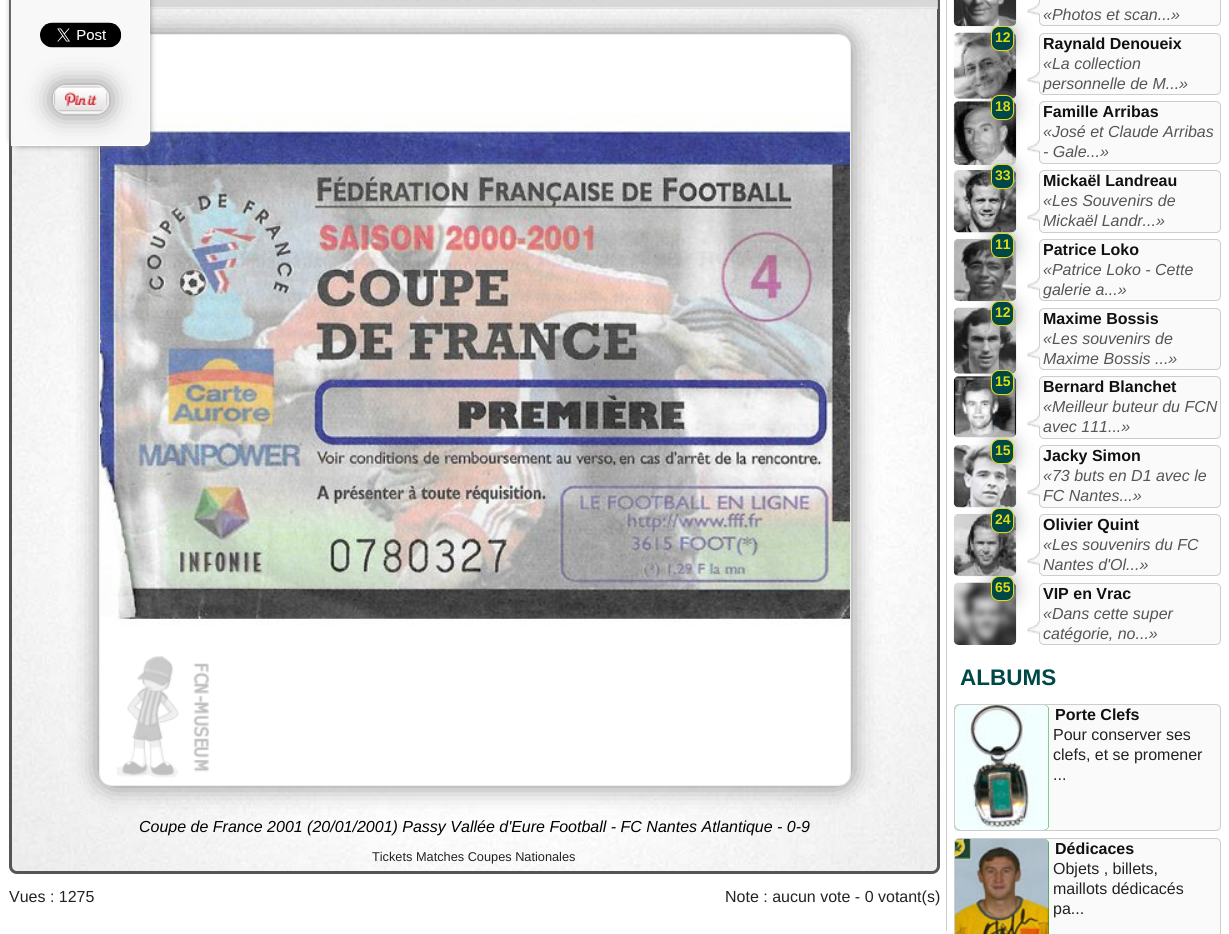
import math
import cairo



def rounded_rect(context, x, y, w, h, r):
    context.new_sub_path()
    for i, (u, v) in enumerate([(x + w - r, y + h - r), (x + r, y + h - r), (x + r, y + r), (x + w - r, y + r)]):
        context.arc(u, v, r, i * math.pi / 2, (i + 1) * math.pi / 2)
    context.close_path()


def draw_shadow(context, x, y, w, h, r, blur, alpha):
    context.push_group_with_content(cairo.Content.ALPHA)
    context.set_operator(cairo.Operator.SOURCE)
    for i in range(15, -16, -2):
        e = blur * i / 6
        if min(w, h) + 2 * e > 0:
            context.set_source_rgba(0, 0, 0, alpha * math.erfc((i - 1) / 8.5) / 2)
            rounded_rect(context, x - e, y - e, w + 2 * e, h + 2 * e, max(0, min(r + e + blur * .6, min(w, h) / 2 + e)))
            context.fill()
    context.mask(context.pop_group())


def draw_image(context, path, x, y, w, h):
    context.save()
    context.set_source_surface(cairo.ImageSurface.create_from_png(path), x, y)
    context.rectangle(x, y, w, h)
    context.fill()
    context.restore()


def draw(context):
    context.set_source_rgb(1, 1, 1)
    context.paint()
    context.set_source_rgb(203 / 255, 203 / 255, 203 / 255)
    context.rectangle(946, 0, 1, 931)
    context.fill()
    draw_image(context, "images/1.png", 9, 9, 931, 865)
    rounded_rect(context, 10.5, -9.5, 928, 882, 6.5)
    context.set_source_rgb(85 / 255, 85 / 255, 85 / 255)
    context.set_line_width(3)
    context.stroke()
    context.set_source_rgb(191 / 255, 190 / 255, 191 / 255)
    context.rectangle(150, 0, 788, 9)
    context.fill()
    draw_image(context, "images/4.png", 150, 0, 788, 9)
    draw_image(context, "images/5.png", 356, 0, 14, 1)
    draw_image(context, "images/6.png", 381, 0, 14, 1)
    draw_image(context, "images/7.png", 406, 0, 14, 1)
    draw_image(context, "images/8.png", 431, 0, 14, 1)
    draw_image(context, "images/9.png", 456, 0, 14, 1)
    draw_image(context, "images/10.png", 481, 0, 14, 1)
    draw_image(context, "images/11.png", 506, 0, 14, 1)
    draw_image(context, "images/12.png", 531, 0, 14, 1)
    draw_image(context, "images/13.png", 556, 0, 14, 1)
    draw_image(context, "images/14.png", 581, 0, 14, 1)
    context.set_source_rgb(136 / 255, 136 / 255, 136 / 255)
    draw_shadow(context, 99, 34, 752, 752, 13, 12.5, 1)
    rounded_rect(context, 99.5, 34.5, 751, 751, 12.5)
    context.set_source_rgb(238 / 255, 238 / 255, 238 / 255)
    context.set_line_width(1)
    context.stroke()
    draw_image(context, "images/15.png", 100, 35, 750, 750)
    context.set_source_rgb(136 / 255, 136 / 255, 136 / 255)
    draw_shadow(context, 11, -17, 139, 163, 8, 3, 1)
    context.set_source_rgb(248 / 255, 248 / 255, 248 / 255)
    context.new_path()
    context.move_to(11, -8)
    context.line_to(142, -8)
    context.curve_to(146.5, -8, 150, -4.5, 150, 0)
    context.line_to(150, 138)
    context.curve_to(150, 142.5, 146.5, 146, 142, 146)
    context.line_to(11, 146)
    context.close_path()
    context.fill()
    context.set_source_rgb(1, 1, 1)
    context.set_fill_rule(cairo.FillRule.EVEN_ODD)
    context.new_path()
    context.move_to(11, -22)
    context.line_to(142, -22)
    context.curve_to(147, -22, 150, -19, 150, -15)
    context.line_to(150, 139)
    context.curve_to(150, 143, 147, 146, 142, 146)
    context.line_to(11, 146)
    context.close_path()
    context.move_to(11, -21)
    context.line_to(142, -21)
    context.curve_to(146, -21, 149, -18, 149, -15)
    context.line_to(149, 139)
    context.curve_to(149, 142, 146, 145, 142, 145)
    context.line_to(11, 145)
    context.close_path()
    context.fill()
    draw_image(context, "images/2.png", 40, 22, 82, 26)
    context.save()
    context.new_path()
    context.move_to(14, 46)
    context.line_to(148, 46)
    context.line_to(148, 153)
    context.line_to(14, 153)
    context.close_path()
    context.move_to(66, 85)
    context.line_to(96, 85)
    context.curve_to(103, 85, 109, 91, 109, 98)
    context.line_to(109, 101)
    context.curve_to(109, 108, 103, 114, 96, 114)
    context.line_to(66, 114)
    context.curve_to(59, 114, 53, 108, 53, 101)
    context.line_to(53, 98)
    context.curve_to(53, 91, 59, 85, 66, 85)
    context.close_path()
    context.clip()
    context.set_source_rgb(136 / 255, 136 / 255, 136 / 255)
    draw_shadow(context, 53, 85, 56, 29, 13, 12.5, 1)
    context.restore()
    rounded_rect(context, 53.5, 85.5, 55, 28, 12.5)
    context.set_source_rgb(238 / 255, 238 / 255, 238 / 255)
    context.stroke()
    draw_image(context, "images/3.png", 54, 86, 54, 26)
    draw_image(context, "images/16.png", 953, 0, 64, 27)
    context.set_source_rgb(250 / 255, 250 / 255, 250 / 255)
    rounded_rect(context, 1039.5, -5.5, 181, 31, 4.5)
    context.fill_preserve()
    context.set_source_rgb(205 / 255, 205 / 255, 205 / 255)
    context.stroke()
    draw_image(context, "images/17.png", 1027, 2, 13, 13)
    draw_image(context, "images/18.png", 953, 32, 64, 67)
    context.set_source_rgb(170 / 255, 170 / 255, 170 / 255)
    draw_shadow(context, 991, 26, 23, 25, 8, 9, 1)
    context.set_source_rgb(0, 72 / 255, 71 / 255)
    rounded_rect(context, 991.5, 26.5, 22, 24, 7.5)
    context.fill_preserve()
    context.set_source_rgb(224 / 255, 219 / 255, 20 / 255)
    context.stroke()
    context.set_source_rgb(250 / 255, 250 / 255, 250 / 255)
    rounded_rect(context, 1039.5, 33.5, 181, 61, 4.5)
    context.fill_preserve()
    context.set_source_rgb(205 / 255, 205 / 255, 205 / 255)
    context.stroke()
    draw_image(context, "images/19.png", 1027, 71, 13, 13)
    draw_image(context, "images/20.png", 953, 101, 64, 64)
    context.set_source_rgb(170 / 255, 170 / 255, 170 / 255)
    draw_shadow(context, 991, 95, 23, 25, 8, 9, 1)
    context.set_source_rgb(0, 72 / 255, 71 / 255)
    rounded_rect(context, 991.5, 95.5, 22, 24, 7.5)
    context.fill_preserve()
    context.set_source_rgb(224 / 255, 219 / 255, 20 / 255)
    context.stroke()
    context.set_source_rgb(250 / 255, 250 / 255, 250 / 255)
    rounded_rect(context, 1039.5, 101.5, 181, 62, 4.5)
    context.fill_preserve()
    context.set_source_rgb(205 / 255, 205 / 255, 205 / 255)
    context.stroke()
    draw_image(context, "images/21.png", 1027, 140, 13, 13)
    draw_image(context, "images/22.png", 953, 170, 64, 63)
    context.set_source_rgb(170 / 255, 170 / 255, 170 / 255)
    draw_shadow(context, 991, 164, 23, 25, 8, 9, 1)
    context.set_source_rgb(0, 72 / 255, 71 / 255)
    rounded_rect(context, 991.5, 164.5, 22, 24, 7.5)
    context.fill_preserve()
    context.set_source_rgb(224 / 255, 219 / 255, 20 / 255)
    context.stroke()
    context.set_source_rgb(250 / 255, 250 / 255, 250 / 255)
    rounded_rect(context, 1039.5, 170.5, 181, 62, 4.5)
    context.fill_preserve()
    context.set_source_rgb(205 / 255, 205 / 255, 205 / 255)
    context.stroke()
    draw_image(context, "images/23.png", 1027, 208, 13, 14)
    draw_image(context, "images/24.png", 953, 238, 64, 64)
    context.set_source_rgb(170 / 255, 170 / 255, 170 / 255)
    draw_shadow(context, 991, 233, 23, 25, 8, 9, 1)
    context.set_source_rgb(0, 72 / 255, 71 / 255)
    rounded_rect(context, 991.5, 233.5, 22, 24, 7.5)
    context.fill_preserve()
    context.set_source_rgb(224 / 255, 219 / 255, 20 / 255)
    context.stroke()
    context.set_source_rgb(250 / 255, 250 / 255, 250 / 255)
    rounded_rect(context, 1039.5, 239.5, 181, 61, 4.5)
    context.fill_preserve()
    context.set_source_rgb(205 / 255, 205 / 255, 205 / 255)
    context.stroke()
    draw_image(context, "images/17.png", 1027, 277, 13, 13)
    draw_image(context, "images/25.png", 953, 307, 64, 67)
    context.set_source_rgb(170 / 255, 170 / 255, 170 / 255)
    draw_shadow(context, 991, 301, 23, 25, 8, 9, 1)
    context.set_source_rgb(0, 72 / 255, 71 / 255)
    rounded_rect(context, 991.5, 301.5, 22, 24, 7.5)
    context.fill_preserve()
    context.set_source_rgb(224 / 255, 219 / 255, 20 / 255)
    context.stroke()
    context.set_source_rgb(250 / 255, 250 / 255, 250 / 255)
    rounded_rect(context, 1039.5, 308.5, 181, 61, 4.5)
    context.fill_preserve()
    context.set_source_rgb(205 / 255, 205 / 255, 205 / 255)
    context.stroke()
    draw_image(context, "images/19.png", 1027, 346, 13, 13)
    draw_image(context, "images/26.png", 953, 376, 64, 62)
    context.set_source_rgb(170 / 255, 170 / 255, 170 / 255)
    draw_shadow(context, 991, 370, 23, 25, 8, 9, 1)
    context.set_source_rgb(0, 72 / 255, 71 / 255)
    rounded_rect(context, 991.5, 370.5, 22, 24, 7.5)
    context.fill_preserve()
    context.set_source_rgb(224 / 255, 219 / 255, 20 / 255)
    context.stroke()
    context.set_source_rgb(250 / 255, 250 / 255, 250 / 255)
    rounded_rect(context, 1039.5, 376.5, 181, 62, 4.5)
    context.fill_preserve()
    context.set_source_rgb(205 / 255, 205 / 255, 205 / 255)
    context.stroke()
    draw_image(context, "images/21.png", 1027, 415, 13, 13)
    draw_image(context, "images/27.png", 953, 445, 64, 63)
    context.set_source_rgb(170 / 255, 170 / 255, 170 / 255)
    draw_shadow(context, 991, 439, 23, 25, 8, 9, 1)
    context.set_source_rgb(0, 72 / 255, 71 / 255)
    rounded_rect(context, 991.5, 439.5, 22, 24, 7.5)
    context.fill_preserve()
    context.set_source_rgb(224 / 255, 219 / 255, 20 / 255)
    context.stroke()
    context.set_source_rgb(250 / 255, 250 / 255, 250 / 255)
    rounded_rect(context, 1039.5, 445.5, 181, 62, 4.5)
    context.fill_preserve()
    context.set_source_rgb(205 / 255, 205 / 255, 205 / 255)
    context.stroke()
    draw_image(context, "images/23.png", 1027, 483, 13, 14)
    draw_image(context, "images/28.png", 953, 513, 64, 64)
    context.set_source_rgb(170 / 255, 170 / 255, 170 / 255)
    draw_shadow(context, 991, 508, 23, 25, 8, 9, 1)
    context.set_source_rgb(0, 72 / 255, 71 / 255)
    rounded_rect(context, 991.5, 508.5, 22, 24, 7.5)
    context.fill_preserve()
    context.set_source_rgb(224 / 255, 219 / 255, 20 / 255)
    context.stroke()
    context.set_source_rgb(250 / 255, 250 / 255, 250 / 255)
    rounded_rect(context, 1039.5, 514.5, 181, 61, 4.5)
    context.fill_preserve()
    context.set_source_rgb(205 / 255, 205 / 255, 205 / 255)
    context.stroke()
    draw_image(context, "images/17.png", 1027, 552, 13, 13)
    draw_image(context, "images/29.png", 953, 582, 64, 63)
    context.set_source_rgb(170 / 255, 170 / 255, 170 / 255)
    draw_shadow(context, 991, 576, 23, 25, 8, 9, 1)
    context.set_source_rgb(0, 72 / 255, 71 / 255)
    rounded_rect(context, 991.5, 576.5, 22, 24, 7.5)
    context.fill_preserve()
    context.set_source_rgb(224 / 255, 219 / 255, 20 / 255)
    context.stroke()
    context.set_source_rgb(250 / 255, 250 / 255, 250 / 255)
    rounded_rect(context, 1039.5, 583.5, 181, 61, 4.5)
    context.fill_preserve()
    context.set_source_rgb(205 / 255, 205 / 255, 205 / 255)
    context.stroke()
    draw_image(context, "images/19.png", 1027, 621, 13, 13)
    context.set_source_rgb(250 / 255, 250 / 255, 250 / 255)
    rounded_rect(context, 954.5, 704.5, 266, 126, 4.5)
    context.fill_preserve()
    context.set_source_rgb(205 / 255, 205 / 255, 205 / 255)
    context.stroke()
    context.set_source_rgb(0, 136 / 255, 0)
    rounded_rect(context, 955, 705, 94, 125, 5)
    context.fill()
    draw_image(context, "images/30.png", 955, 705, 94, 125)
    context.set_source_rgb(250 / 255, 250 / 255, 250 / 255)
    rounded_rect(context, 954.5, 838.5, 266, 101, 4.5)
    context.fill_preserve()
    context.set_source_rgb(205 / 255, 205 / 255, 205 / 255)
    context.stroke()
    context.set_source_rgb(0, 136 / 255, 0)
    rounded_rect(context, 955, 839, 94, 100, 5)
    context.fill()
    draw_image(context, "images/31.png", 955, 838, 94, 96)
    context.select_font_face("Liberation Sans", cairo.FontSlant.ITALIC)
    context.set_font_size(16)
    context.set_source_rgb(0, 0, 0)
    context.move_to(139, 832)
    context.show_text("Coupe de France 2001 (20/01/2001) Passy Vallée d'Eure Football - FC Nantes Atlantique - 0-9")
    context.select_font_face("Liberation Sans")
    context.set_font_size(12.75)
    context.set_source_rgb(34 / 255, 34 / 255, 34 / 255)
    context.move_to(372, 861)
    context.show_text("Tickets Matches Coupes Nationales")
    context.set_font_size(16)
    context.move_to(9, 902)
    context.show_text("Vues : 1275")
    context.move_to(725, 902)
    context.show_text("Note : aucun vote - 0 votant(s)")
    context.select_font_face("Liberation Sans", cairo.FontSlant.ITALIC)
    context.set_source_rgb(85 / 255, 85 / 255, 85 / 255)
    context.move_to(1043, 20)
    context.show_text("«Photos et scan...»")
    context.select_font_face("Liberation Sans", cairo.FontSlant.NORMAL, cairo.FontWeight.BOLD)
    context.set_font_size(14)
    context.set_source_rgb(224 / 255, 219 / 255, 20 / 255)
    context.move_to(995, 42)
    context.show_text("12")
    context.set_font_size(16)
    context.set_source_rgb(17 / 255, 17 / 255, 17 / 255)
    context.move_to(1043, 49)
    context.show_text("Raynald Denoueix")
    context.select_font_face("Liberation Sans", cairo.FontSlant.ITALIC)
    context.set_source_rgb(85 / 255, 85 / 255, 85 / 255)
    context.move_to(1043, 69)
    context.show_text("«La collection")
    context.move_to(1043, 89)
    context.show_text("personnelle de M...»")
    context.select_font_face("Liberation Sans", cairo.FontSlant.NORMAL, cairo.FontWeight.BOLD)
    context.set_font_size(14)
    context.set_source_rgb(224 / 255, 219 / 255, 20 / 255)
    context.move_to(995, 111)
    context.show_text("18")
    context.set_font_size(16)
    context.set_source_rgb(17 / 255, 17 / 255, 17 / 255)
    context.move_to(1043, 117)
    context.show_text("Famille Arribas")
    context.select_font_face("Liberation Sans", cairo.FontSlant.ITALIC)
    context.set_source_rgb(85 / 255, 85 / 255, 85 / 255)
    context.move_to(1043, 137)
    context.show_text("«José et Claude Arribas")
    context.move_to(1043, 157)
    context.show_text("- Gale...»")
    context.select_font_face("Liberation Sans", cairo.FontSlant.NORMAL, cairo.FontWeight.BOLD)
    context.set_font_size(14)
    context.set_source_rgb(224 / 255, 219 / 255, 20 / 255)
    context.move_to(995, 180)
    context.show_text("33")
    context.set_font_size(16)
    context.set_source_rgb(17 / 255, 17 / 255, 17 / 255)
    context.move_to(1043, 186)
    context.show_text("Mickaël Landreau")
    context.select_font_face("Liberation Sans", cairo.FontSlant.ITALIC)
    context.set_source_rgb(85 / 255, 85 / 255, 85 / 255)
    context.move_to(1043, 206)
    context.show_text("«Les Souvenirs de")
    context.move_to(1043, 226)
    context.show_text("Mickaël Landr...»")
    context.select_font_face("Liberation Sans", cairo.FontSlant.NORMAL, cairo.FontWeight.BOLD)
    context.set_font_size(14)
    context.set_source_rgb(224 / 255, 219 / 255, 20 / 255)
    context.move_to(995, 249)
    context.show_text("11")
    context.set_font_size(16)
    context.set_source_rgb(17 / 255, 17 / 255, 17 / 255)
    context.move_to(1043, 255)
    context.show_text("Patrice Loko")
    context.select_font_face("Liberation Sans", cairo.FontSlant.ITALIC)
    context.set_source_rgb(85 / 255, 85 / 255, 85 / 255)
    context.move_to(1043, 275)
    context.show_text("«Patrice Loko - Cette")
    context.move_to(1043, 295)
    context.show_text("galerie a...»")
    context.select_font_face("Liberation Sans", cairo.FontSlant.NORMAL, cairo.FontWeight.BOLD)
    context.set_font_size(14)
    context.set_source_rgb(224 / 255, 219 / 255, 20 / 255)
    context.move_to(995, 317)
    context.show_text("12")
    context.set_font_size(16)
    context.set_source_rgb(17 / 255, 17 / 255, 17 / 255)
    context.move_to(1043, 324)
    context.show_text("Maxime Bossis")
    context.select_font_face("Liberation Sans", cairo.FontSlant.ITALIC)
    context.set_source_rgb(85 / 255, 85 / 255, 85 / 255)
    context.move_to(1043, 344)
    context.show_text("«Les souvenirs de")
    context.move_to(1043, 364)
    context.show_text("Maxime Bossis ...»")
    context.select_font_face("Liberation Sans", cairo.FontSlant.NORMAL, cairo.FontWeight.BOLD)
    context.set_font_size(14)
    context.set_source_rgb(224 / 255, 219 / 255, 20 / 255)
    context.move_to(995, 386)
    context.show_text("15")
    context.set_font_size(16)
    context.set_source_rgb(17 / 255, 17 / 255, 17 / 255)
    context.move_to(1043, 392)
    context.show_text("Bernard Blanchet")
    context.select_font_face("Liberation Sans", cairo.FontSlant.ITALIC)
    context.set_source_rgb(85 / 255, 85 / 255, 85 / 255)
    context.move_to(1043, 412)
    context.show_text("«Meilleur buteur du FCN")
    context.move_to(1043, 432)
    context.show_text("avec 111...»")
    context.select_font_face("Liberation Sans", cairo.FontSlant.NORMAL, cairo.FontWeight.BOLD)
    context.set_font_size(14)
    context.set_source_rgb(224 / 255, 219 / 255, 20 / 255)
    context.move_to(995, 455)
    context.show_text("15")
    context.set_font_size(16)
    context.set_source_rgb(17 / 255, 17 / 255, 17 / 255)
    context.move_to(1043, 461)
    context.show_text("Jacky Simon")
    context.select_font_face("Liberation Sans", cairo.FontSlant.ITALIC)
    context.set_source_rgb(85 / 255, 85 / 255, 85 / 255)
    context.move_to(1043, 481)
    context.show_text("«73 buts en D1 avec le")
    context.move_to(1043, 501)
    context.show_text("FC Nantes...»")
    context.select_font_face("Liberation Sans", cairo.FontSlant.NORMAL, cairo.FontWeight.BOLD)
    context.set_font_size(14)
    context.set_source_rgb(224 / 255, 219 / 255, 20 / 255)
    context.move_to(995, 524)
    context.show_text("24")
    context.set_font_size(16)
    context.set_source_rgb(17 / 255, 17 / 255, 17 / 255)
    context.move_to(1043, 530)
    context.show_text("Olivier Quint")
    context.select_font_face("Liberation Sans", cairo.FontSlant.ITALIC)
    context.set_source_rgb(85 / 255, 85 / 255, 85 / 255)
    context.move_to(1043, 550)
    context.show_text("«Les souvenirs du FC")
    context.move_to(1043, 570)
    context.show_text("Nantes d'Ol...»")
    context.select_font_face("Liberation Sans", cairo.FontSlant.NORMAL, cairo.FontWeight.BOLD)
    context.set_font_size(14)
    context.set_source_rgb(224 / 255, 219 / 255, 20 / 255)
    context.move_to(995, 592)
    context.show_text("65")
    context.set_font_size(16)
    context.set_source_rgb(17 / 255, 17 / 255, 17 / 255)
    context.move_to(1043, 599)
    context.show_text("VIP en Vrac")
    context.select_font_face("Liberation Sans", cairo.FontSlant.ITALIC)
    context.set_source_rgb(85 / 255, 85 / 255, 85 / 255)
    context.move_to(1043, 619)
    context.show_text("«Dans cette super")
    context.move_to(1043, 639)
    context.show_text("catégorie, no...»")
    context.select_font_face("Liberation Sans", cairo.FontSlant.NORMAL, cairo.FontWeight.BOLD)
    context.set_font_size(22.5)
    context.set_source_rgb(0, 72 / 255, 71 / 255)
    context.move_to(960, 685)
    context.show_text("ALBUMS")
    context.set_font_size(16)
    context.set_source_rgb(17 / 255, 17 / 255, 17 / 255)
    context.move_to(1055, 720)
    context.show_text("Porte Clefs")
    context.select_font_face("Liberation Sans")
    context.set_source_rgb(34 / 255, 34 / 255, 34 / 255)
    context.move_to(1053, 740)
    context.show_text("Pour conserver ses")
    context.move_to(1053, 760)
    context.show_text("clefs, et se promener")
    context.move_to(1053, 780)
    context.show_text("...")
    context.select_font_face("Liberation Sans", cairo.FontSlant.NORMAL, cairo.FontWeight.BOLD)
    context.set_source_rgb(17 / 255, 17 / 255, 17 / 255)
    context.move_to(1055, 854)
    context.show_text("Dédicaces")
    context.select_font_face("Liberation Sans")
    context.set_source_rgb(34 / 255, 34 / 255, 34 / 255)
    context.move_to(1053, 874)
    context.show_text("Objets , billets,")
    context.move_to(1053, 894)
    context.show_text("maillots dédicacés")
    context.move_to(1053, 914)
    context.show_text("pa...")


surface = cairo.ImageSurface(cairo.Format.RGB24, 1229, 934)
context = cairo.Context(surface)
options = cairo.FontOptions()
options.set_hint_metrics(cairo.HintMetrics.OFF)
options.set_hint_style(cairo.HintStyle.NONE)
context.set_font_options(options)
context.set_miter_limit(4)
draw(context)
surface.write_to_png("out.png")
